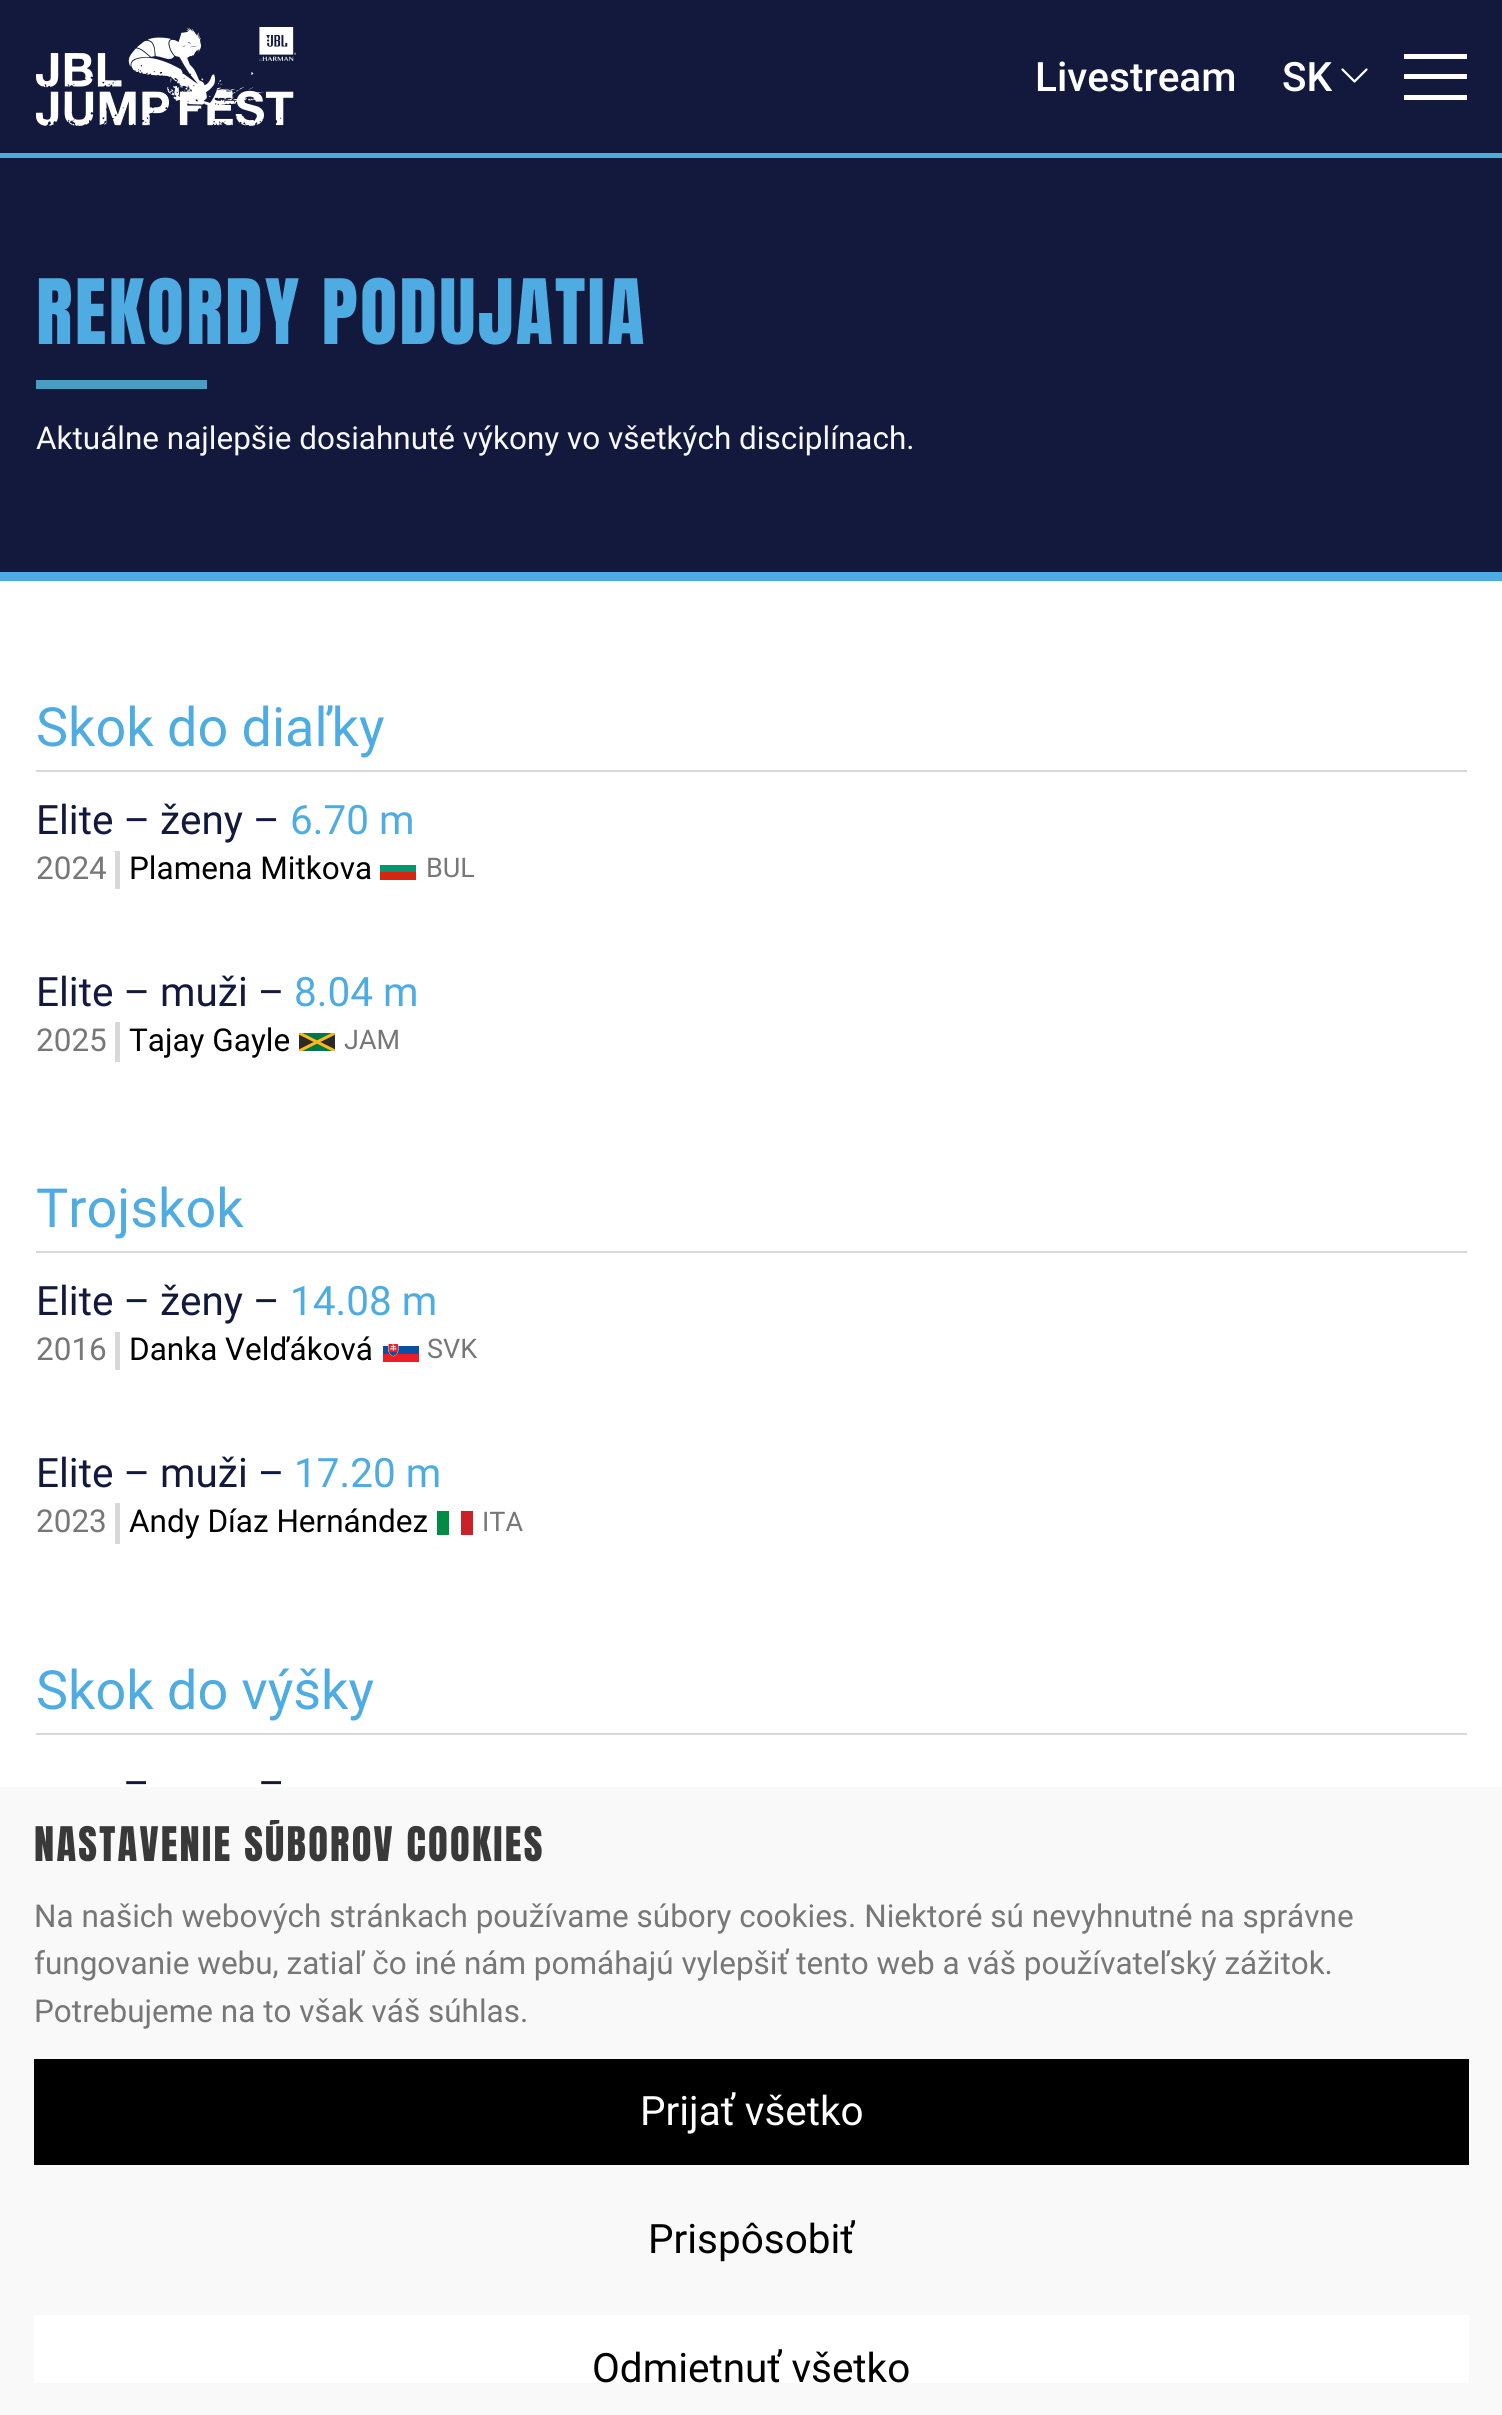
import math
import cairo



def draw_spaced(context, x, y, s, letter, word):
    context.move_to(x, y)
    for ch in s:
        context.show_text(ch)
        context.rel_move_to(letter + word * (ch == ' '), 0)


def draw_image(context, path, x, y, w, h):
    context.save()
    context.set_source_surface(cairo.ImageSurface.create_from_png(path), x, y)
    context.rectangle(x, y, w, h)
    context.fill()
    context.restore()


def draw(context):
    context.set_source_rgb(1, 1, 1)
    context.paint()
    context.set_source_rgb(18 / 255, 25 / 255, 61 / 255)
    context.rectangle(0, 0, 1502, 153)
    context.fill()
    context.set_source_rgb(78 / 255, 172 / 255, 227 / 255)
    context.rectangle(0, 153, 1502, 5)
    context.fill()
    draw_image(context, "images/1.png", 36, 27, 260, 99)
    context.new_path()
    context.move_to(1342.5, 69.5)
    context.line_to(1354.5, 81.5)
    context.line_to(1366.5, 69.5)
    context.set_source_rgb(1, 1, 1)
    context.set_line_width(2.2)
    context.set_line_cap(cairo.LineCap.ROUND)
    context.set_line_join(cairo.LineJoin.ROUND)
    context.stroke()
    context.rectangle(1404, 54, 63, 5)
    context.fill()
    context.rectangle(1404, 74, 63, 5)
    context.fill()
    context.rectangle(1404, 95, 63, 5)
    context.fill()
    context.set_source_rgb(18 / 255, 25 / 255, 61 / 255)
    context.rectangle(0, 158, 1502, 414)
    context.fill()
    context.set_source_rgb(74 / 255, 156 / 255, 194 / 255)
    context.rectangle(36, 380, 171, 9)
    context.fill()
    context.set_source_rgb(78 / 255, 172 / 255, 227 / 255)
    context.rectangle(0, 572, 1502, 9)
    context.fill()
    context.set_source_rgb(216 / 255, 216 / 255, 216 / 255)
    context.rectangle(36, 770, 1431, 2)
    context.fill()
    context.rectangle(115, 851, 5, 38)
    context.fill()
    context.set_source_rgb(0, 150 / 255, 110 / 255)
    context.rectangle(380, 865, 36, 7)
    context.fill()
    context.set_source_rgb(214 / 255, 38 / 255, 18 / 255)
    context.rectangle(380, 872, 36, 8)
    context.fill()
    context.set_source_rgb(216 / 255, 216 / 255, 216 / 255)
    context.rectangle(115, 1022, 5, 40)
    context.fill()
    context.set_source_rgb(0, 119 / 255, 73 / 255)
    context.rectangle(299, 1033, 36, 18)
    context.fill()
    context.set_source_rgb(45 / 255, 41 / 255, 38 / 255)
    context.new_path()
    context.move_to(299, 1033)
    context.line_to(299, 1051)
    context.line_to(317, 1042)
    context.line_to(334.5, 1051)
    context.line_to(335, 1051)
    context.line_to(335, 1033)
    context.line_to(317, 1042)
    context.close_path()
    context.fill()
    context.save()
    context.rectangle(299, 1024, 36, 36)
    context.clip()
    context.new_path()
    context.move_to(299, 1033)
    context.line_to(335, 1033)
    context.line_to(335, 1051)
    context.line_to(299, 1051)
    context.close_path()
    context.clip()
    context.new_path()
    context.move_to(293, 1030)
    context.line_to(293, 1054)
    context.line_to(341, 1030)
    context.line_to(341, 1054)
    context.close_path()
    context.set_source_rgb(1, 184 / 255, 28 / 255)
    context.set_line_width(3)
    context.set_line_cap(cairo.LineCap.BUTT)
    context.set_line_join(cairo.LineJoin.MITER)
    context.stroke()
    context.restore()
    context.set_source_rgb(216 / 255, 216 / 255, 216 / 255)
    context.rectangle(36, 1251, 1431, 2)
    context.fill()
    context.rectangle(115, 1332, 5, 38)
    context.fill()
    draw_image(context, "images/2.png", 383, 1344, 36, 18)
    context.rectangle(115, 1503, 5, 41)
    context.fill()
    context.set_source_rgb(0, 140 / 255, 69 / 255)
    context.rectangle(437, 1511, 12, 24)
    context.fill()
    context.set_source_rgb(205 / 255, 33 / 255, 42 / 255)
    context.rectangle(461, 1511, 12, 24)
    context.fill()
    context.set_source_rgb(216 / 255, 216 / 255, 216 / 255)
    context.rectangle(36, 1733, 1431, 2)
    context.fill()
    context.set_source_rgb(249 / 255, 249 / 255, 249 / 255)
    context.rectangle(0, 1787, 1502, 628)
    context.fill()
    context.set_source_rgb(0, 0, 0)
    context.rectangle(34, 2059, 1435, 106)
    context.fill()
    context.set_source_rgb(1, 1, 1)
    context.rectangle(34, 2315, 1435, 68)
    context.fill()
    context.select_font_face("Roboto Medium")
    context.set_font_size(40.5)
    context.move_to(1035, 91)
    context.show_text("Livestream")
    context.move_to(1282, 91)
    context.show_text("SK")
    context.select_font_face("Anton")
    context.set_font_size(76.5)
    context.set_source_rgb(78 / 255, 172 / 255, 227 / 255)
    draw_spaced(context, 36, 344, "REKORDY PODUJATIA", 2.25, 0)
    context.select_font_face("Roboto")
    context.set_font_size(31.5)
    context.set_source_rgb(248 / 255, 248 / 255, 248 / 255)
    context.move_to(36, 449)
    context.show_text("Aktuálne najlepšie dosiahnuté výkony vo všetkých disciplínach.")
    context.set_font_size(54)
    context.set_source_rgb(78 / 255, 172 / 255, 227 / 255)
    context.move_to(36, 746)
    context.show_text("Skok do diaľky")
    context.set_font_size(40.5)
    context.set_source_rgb(18 / 255, 25 / 255, 61 / 255)
    context.move_to(36, 834)
    context.show_text("Elite – ženy –")
    context.set_source_rgb(78 / 255, 172 / 255, 227 / 255)
    context.move_to(290, 834)
    context.show_text("6.70 m")
    context.set_font_size(31.5)
    context.set_source_rgb(119 / 255, 119 / 255, 119 / 255)
    context.move_to(36, 879)
    context.show_text("2024")
    context.set_source_rgb(0, 0, 0)
    context.move_to(129, 879)
    context.show_text("Plamena Mitkova")
    context.set_font_size(27)
    context.set_source_rgb(119 / 255, 119 / 255, 119 / 255)
    context.move_to(426, 877)
    context.show_text("BUL")
    context.set_font_size(40.5)
    context.set_source_rgb(18 / 255, 25 / 255, 61 / 255)
    context.move_to(36, 1006)
    context.show_text("Elite – muži –")
    context.set_source_rgb(78 / 255, 172 / 255, 227 / 255)
    context.move_to(294, 1006)
    context.show_text("8.04 m")
    context.set_font_size(31.5)
    context.set_source_rgb(119 / 255, 119 / 255, 119 / 255)
    context.move_to(36, 1051)
    context.show_text("2025")
    context.set_source_rgb(0, 0, 0)
    context.move_to(129, 1051)
    context.show_text("Tajay Gayle")
    context.set_font_size(27)
    context.set_source_rgb(119 / 255, 119 / 255, 119 / 255)
    context.move_to(344, 1049)
    context.show_text("JAM")
    context.set_font_size(54)
    context.set_source_rgb(78 / 255, 172 / 255, 227 / 255)
    context.move_to(36, 1227)
    context.show_text("Trojskok")
    context.set_font_size(40.5)
    context.set_source_rgb(18 / 255, 25 / 255, 61 / 255)
    context.move_to(36, 1315)
    context.show_text("Elite – ženy –")
    context.set_source_rgb(78 / 255, 172 / 255, 227 / 255)
    context.move_to(290, 1315)
    context.show_text("14.08 m")
    context.set_font_size(31.5)
    context.set_source_rgb(119 / 255, 119 / 255, 119 / 255)
    context.move_to(36, 1360)
    context.show_text("2016")
    context.set_source_rgb(0, 0, 0)
    context.move_to(129, 1360)
    context.show_text("Danka Velďáková")
    context.set_font_size(27)
    context.set_source_rgb(119 / 255, 119 / 255, 119 / 255)
    context.move_to(427, 1358)
    context.show_text("SVK")
    context.set_font_size(40.5)
    context.set_source_rgb(18 / 255, 25 / 255, 61 / 255)
    context.move_to(36, 1487)
    context.show_text("Elite – muži –")
    context.set_source_rgb(78 / 255, 172 / 255, 227 / 255)
    context.move_to(294, 1487)
    context.show_text("17.20 m")
    context.set_font_size(31.5)
    context.set_source_rgb(119 / 255, 119 / 255, 119 / 255)
    context.move_to(36, 1532)
    context.show_text("2023")
    context.set_source_rgb(0, 0, 0)
    context.move_to(129, 1532)
    context.show_text("Andy Díaz Hernández")
    context.set_font_size(27)
    context.set_source_rgb(119 / 255, 119 / 255, 119 / 255)
    context.move_to(482, 1531)
    context.show_text("ITA")
    context.set_font_size(54)
    context.set_source_rgb(78 / 255, 172 / 255, 227 / 255)
    context.move_to(36, 1709)
    context.show_text("Skok do výšky")
    context.set_font_size(40.5)
    context.set_source_rgb(18 / 255, 25 / 255, 61 / 255)
    context.move_to(123, 1797)
    context.show_text("–")
    context.move_to(258, 1797)
    context.show_text("–")
    context.save()
    context.rectangle(34, 1820, 1435, 563)
    context.clip()
    context.select_font_face("Anton")
    context.set_source_rgb(57 / 255, 57 / 255, 57 / 255)
    draw_spaced(context, 34, 1861, "NASTAVENIE SÚBOROV COOKIES", 2.25, 0)
    context.restore()
    context.set_font_size(31.5)
    context.set_source_rgb(119 / 255, 119 / 255, 119 / 255)
    context.move_to(34, 1927)
    context.show_text("Na našich webových stránkach používame súbory cookies. Niektoré sú nevyhnutné na správne")
    context.move_to(34, 1974)
    context.show_text("fungovanie webu, zatiaľ čo iné nám pomáhajú vylepšiť tento web a váš používateľský zážitok.")
    context.move_to(34, 2022)
    context.show_text("Potrebujeme na to však váš súhlas.")
    context.set_font_size(40.5)
    context.set_source_rgb(1, 1, 1)
    context.move_to(640, 2125)
    context.show_text("Prijať všetko")
    context.set_source_rgb(0, 0, 0)
    context.move_to(648, 2253)
    context.show_text("Prispôsobiť")
    context.move_to(592, 2382)
    context.show_text("Odmietnuť všetko")


surface = cairo.ImageSurface(cairo.Format.RGB24, 1502, 2415)
context = cairo.Context(surface)
options = cairo.FontOptions()
options.set_hint_metrics(cairo.HintMetrics.OFF)
options.set_hint_style(cairo.HintStyle.NONE)
context.set_font_options(options)
context.set_miter_limit(4)
draw(context)
surface.write_to_png("out.png")
